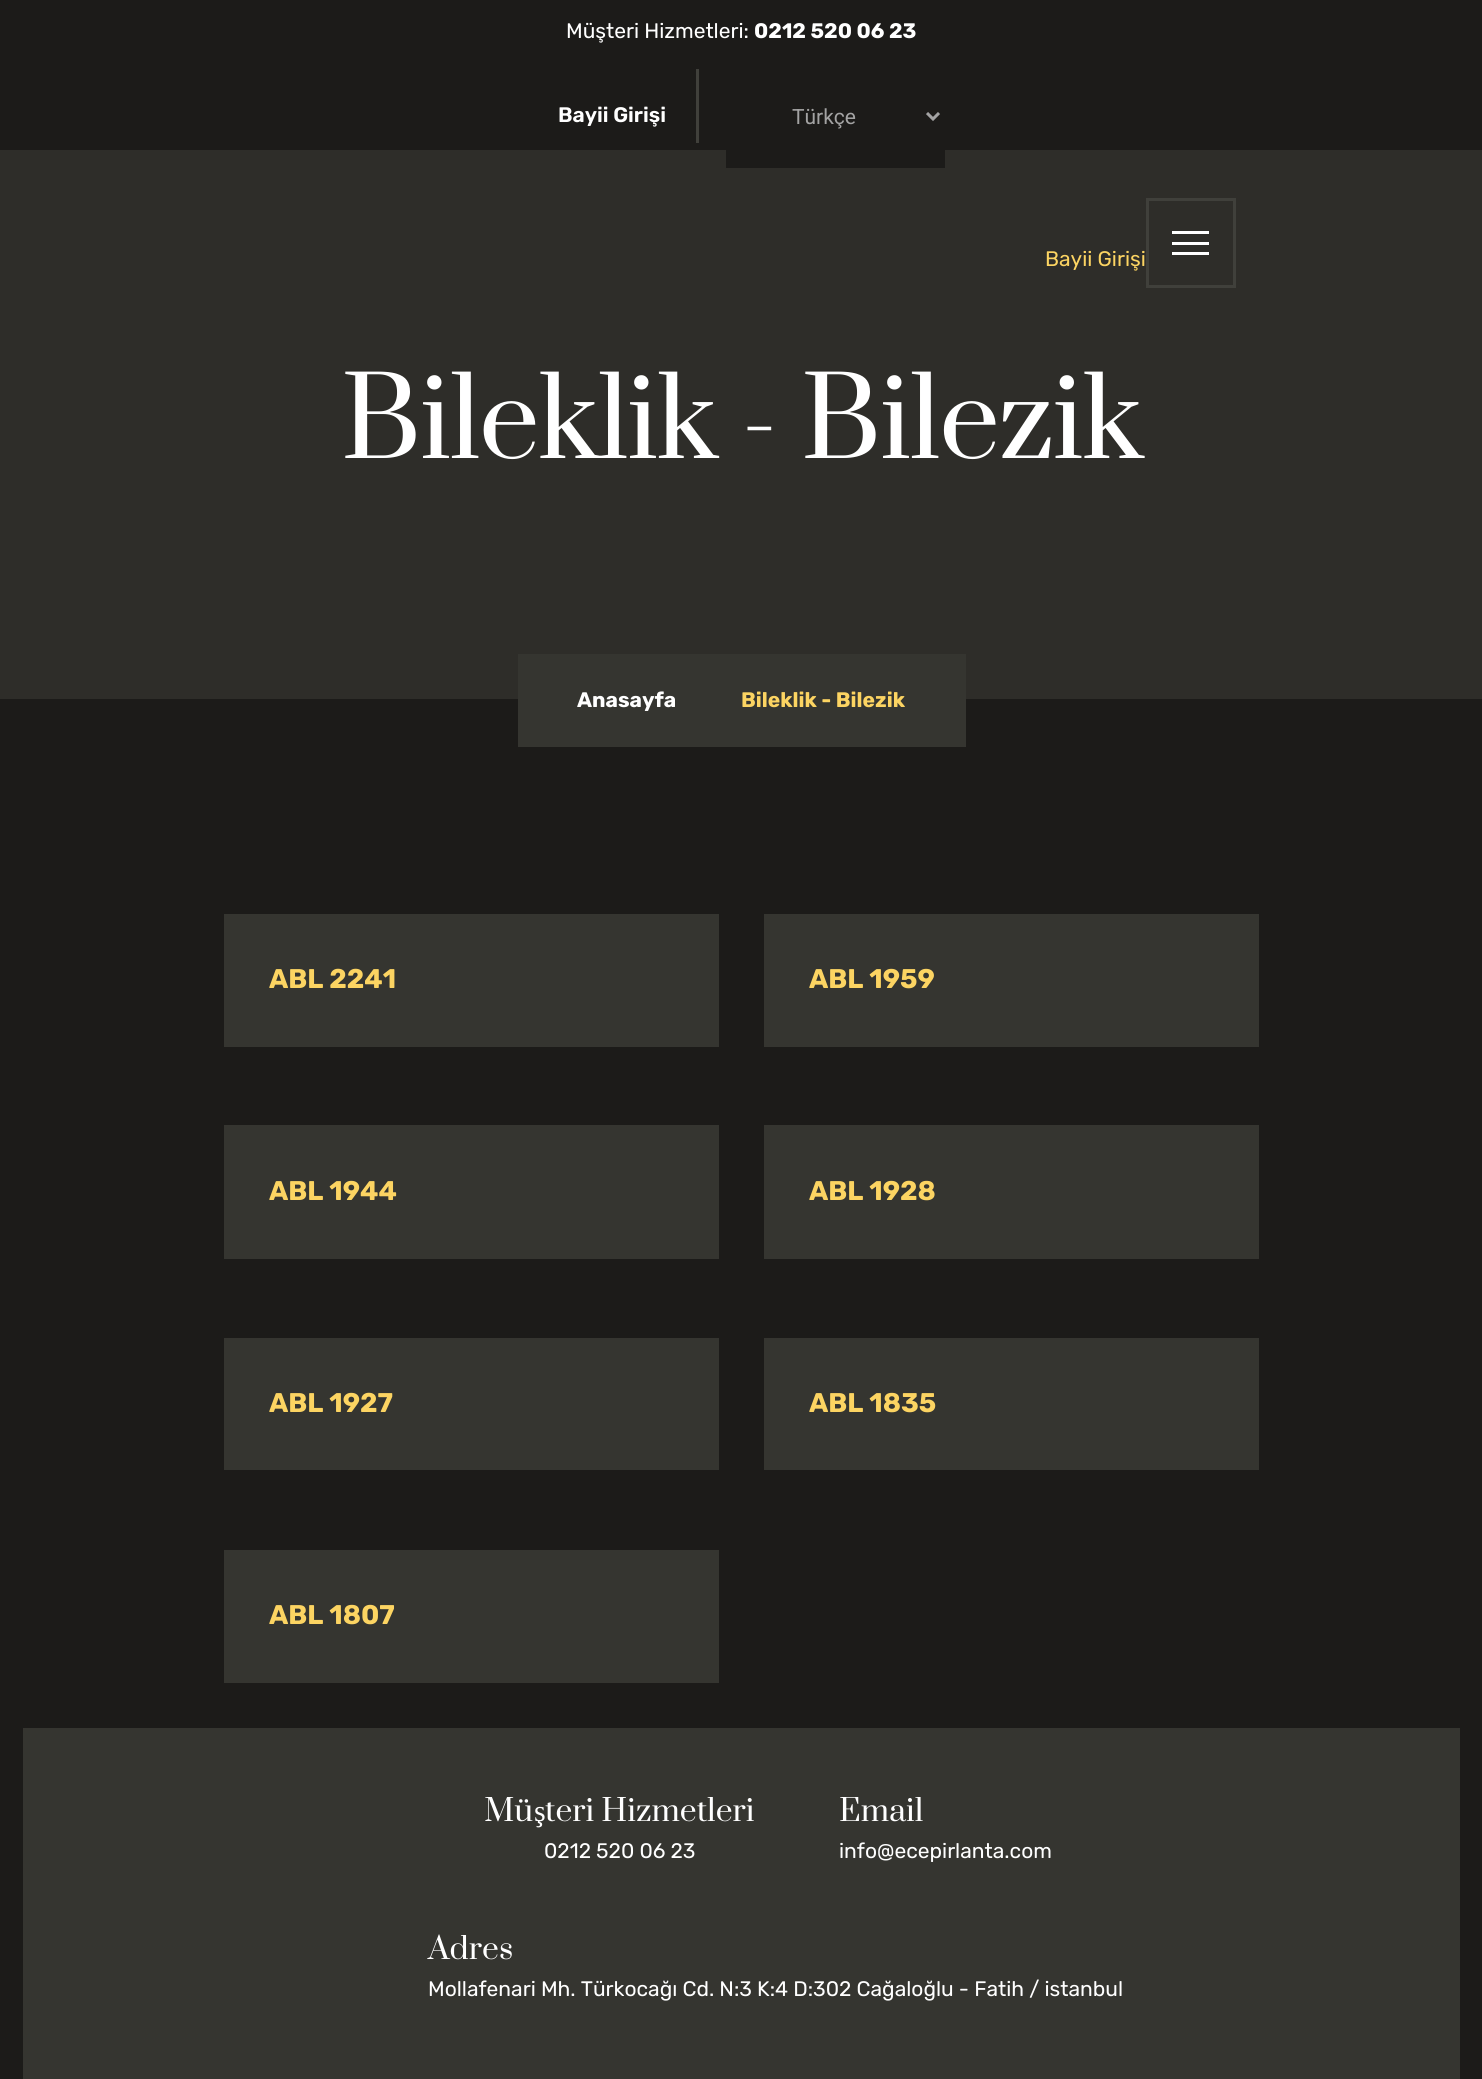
import math
import cairo



def draw_spaced(context, x, y, s, letter, word):
    context.move_to(x, y)
    for ch in s:
        context.show_text(ch)
        context.rel_move_to(letter + word * (ch == ' '), 0)


def draw(context):
    context.set_source_rgb(28 / 255, 27 / 255, 25 / 255)
    context.paint()
    context.set_source_rgb(64 / 255, 64 / 255, 59 / 255)
    context.rectangle(696, 69, 3, 74)
    context.fill()
    context.set_source_rgb(46 / 255, 45 / 255, 41 / 255)
    context.rectangle(0, 150, 1482, 549)
    context.fill()
    context.set_source_rgb(28 / 255, 27 / 255, 25 / 255)
    context.rectangle(726, 150, 219, 18)
    context.fill()
    context.new_path()
    context.move_to(927, 113)
    context.line_to(933, 119)
    context.line_to(939, 113)
    context.set_source_rgb(163 / 255, 163 / 255, 163 / 255)
    context.set_line_width(3)
    context.stroke()
    context.rectangle(1147.5, 199.5, 87, 87)
    context.set_source_rgb(64 / 255, 64 / 255, 59 / 255)
    context.stroke()
    context.set_source_rgb(1, 1, 1)
    context.rectangle(1172, 231, 37, 3)
    context.fill()
    context.rectangle(1172, 242, 37, 3)
    context.fill()
    context.rectangle(1172, 252, 37, 3)
    context.fill()
    context.set_source_rgb(53 / 255, 53 / 255, 48 / 255)
    context.rectangle(518, 654, 448, 93)
    context.fill()
    context.rectangle(224, 914, 495, 133)
    context.fill()
    context.rectangle(764, 914, 495, 133)
    context.fill()
    context.rectangle(224, 1125, 495, 134)
    context.fill()
    context.rectangle(764, 1125, 495, 134)
    context.fill()
    context.rectangle(224, 1338, 495, 132)
    context.fill()
    context.rectangle(764, 1338, 495, 132)
    context.fill()
    context.rectangle(224, 1550, 495, 133)
    context.fill()
    context.rectangle(23, 1728, 1437, 351)
    context.fill()
    context.select_font_face("Rubik")
    context.set_font_size(21)
    context.set_source_rgb(1, 1, 1)
    context.move_to(566, 38)
    context.show_text("Müşteri Hizmetleri:")
    context.select_font_face("Rubik", cairo.FontSlant.NORMAL, cairo.FontWeight.BOLD)
    context.move_to(754, 38)
    context.show_text("0212 520 06 23")
    context.select_font_face("Rubik SemiBold")
    context.move_to(558, 122)
    context.show_text("Bayii Girişi")
    context.select_font_face("Roboto")
    context.set_source_rgb(163 / 255, 163 / 255, 163 / 255)
    context.move_to(792, 124)
    context.show_text("Türkçe")
    context.select_font_face("Rubik")
    context.set_source_rgb(252 / 255, 212 / 255, 98 / 255)
    context.move_to(1045, 266)
    context.show_text("Bayii Girişi")
    context.select_font_face("Prata")
    context.set_font_size(108)
    context.set_source_rgb(1, 1, 1)
    draw_spaced(context, 341, 458, "Bileklik - Bilezik", -1.5, 0)
    context.select_font_face("Rubik", cairo.FontSlant.NORMAL, cairo.FontWeight.BOLD)
    context.set_font_size(21)
    context.move_to(577, 707)
    context.show_text("Anasayfa")
    context.set_source_rgb(252 / 255, 212 / 255, 98 / 255)
    context.move_to(741, 707)
    context.show_text("Bileklik - Bilezik")
    context.set_font_size(27)
    context.move_to(269, 988)
    context.show_text("ABL 2241")
    context.move_to(809, 988)
    context.show_text("ABL 1959")
    context.move_to(269, 1200)
    context.show_text("ABL 1944")
    context.move_to(809, 1200)
    context.show_text("ABL 1928")
    context.move_to(269, 1412)
    context.show_text("ABL 1927")
    context.move_to(809, 1412)
    context.show_text("ABL 1835")
    context.move_to(269, 1624)
    context.show_text("ABL 1807")
    context.select_font_face("Prata")
    context.set_font_size(30)
    context.set_source_rgb(1, 1, 1)
    context.move_to(484, 1821)
    context.show_text("Mü")
    context.select_font_face("Liberation Serif")
    context.move_to(534, 1821)
    context.show_text("ş")
    context.select_font_face("Prata")
    context.move_to(545, 1821)
    context.show_text("teri Hizmetleri")
    context.select_font_face("Rubik")
    context.set_font_size(21)
    context.move_to(544, 1858)
    context.show_text("0212 520 06 23")
    context.select_font_face("Prata")
    context.set_font_size(30)
    context.move_to(839, 1821)
    context.show_text("Email")
    context.select_font_face("Rubik")
    context.set_font_size(21)
    context.move_to(839, 1858)
    context.show_text("info@ecepirlanta.com")
    context.select_font_face("Prata")
    context.set_font_size(30)
    context.move_to(428, 1959)
    context.show_text("Adres")
    context.select_font_face("Rubik")
    context.set_font_size(21)
    context.move_to(428, 1996)
    context.show_text("Mollafenari Mh. Türkocağı Cd. N:3 K:4 D:302 Cağaloğlu - Fatih / istanbul")


surface = cairo.ImageSurface(cairo.Format.RGB24, 1482, 2079)
context = cairo.Context(surface)
options = cairo.FontOptions()
options.set_hint_metrics(cairo.HintMetrics.OFF)
options.set_hint_style(cairo.HintStyle.NONE)
context.set_font_options(options)
context.set_miter_limit(4)
draw(context)
surface.write_to_png("out.png")
